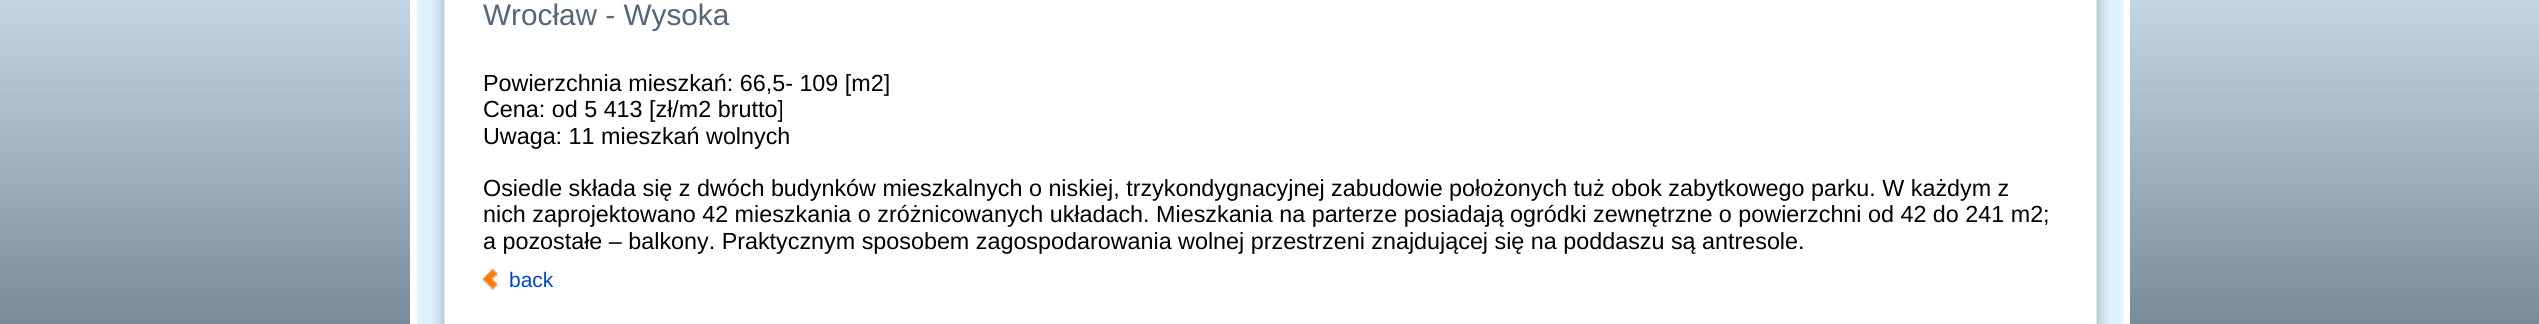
import math
import cairo



def draw_image(context, path, x, y, w, h):
    context.save()
    context.set_source_surface(cairo.ImageSurface.create_from_png(path), x, y)
    context.rectangle(x, y, w, h)
    context.fill()
    context.restore()


def draw(context):
    context.set_source_rgb(1, 1, 1)
    context.paint()
    draw_image(context, "images/1.png", 0, 0, 2539, 324)
    context.set_source_rgb(1, 1, 1)
    context.rectangle(410, 0, 1720, 324)
    context.fill()
    context.set_source_rgb(222 / 255, 243 / 255, 1)
    context.rectangle(417, 0, 1706, 324)
    context.fill()
    draw_image(context, "images/2.png", 431, 0, 1678, 324)
    draw_image(context, "images/3.png", 483, 269, 14, 21)
    context.select_font_face("Liberation Sans")
    context.set_font_size(29.75)
    context.set_source_rgb(85 / 255, 102 / 255, 119 / 255)
    context.move_to(483, 25)
    context.show_text("Wrocław - Wysoka")
    context.set_font_size(23.33)
    context.set_source_rgb(0, 0, 0)
    context.move_to(483, 91)
    context.show_text("Powierzchnia mieszkań: 66,5- 109 [m2]")
    context.move_to(483, 117)
    context.show_text("Cena: od 5 413 [zł/m2 brutto]")
    context.move_to(483, 144)
    context.show_text("Uwaga: 11 mieszkań wolnych")
    context.move_to(483, 196)
    context.show_text("Osiedle składa się z dwóch budynków mieszkalnych o niskiej, trzykondygnacyjnej zabudowie położonych tuż obok zabytkowego parku. W każdym z")
    context.move_to(483, 222)
    context.show_text("nich zaprojektowano 42 mieszkania o zróżnicowanych układach. Mieszkania na parterze posiadają ogródki zewnętrzne o powierzchni od 42 do 241 m2;")
    context.move_to(483, 249)
    context.show_text("a pozostałe – balkony. Praktycznym sposobem zagospodarowania wolnej przestrzeni znajdującej się na poddaszu są antresole.")
    context.set_font_size(21)
    context.set_source_rgb(0, 68 / 255, 204 / 255)
    context.move_to(509, 287)
    context.show_text("back")


surface = cairo.ImageSurface(cairo.Format.RGB24, 2539, 324)
context = cairo.Context(surface)
options = cairo.FontOptions()
options.set_hint_metrics(cairo.HintMetrics.OFF)
options.set_hint_style(cairo.HintStyle.NONE)
context.set_font_options(options)
context.set_miter_limit(4)
draw(context)
surface.write_to_png("out.png")
